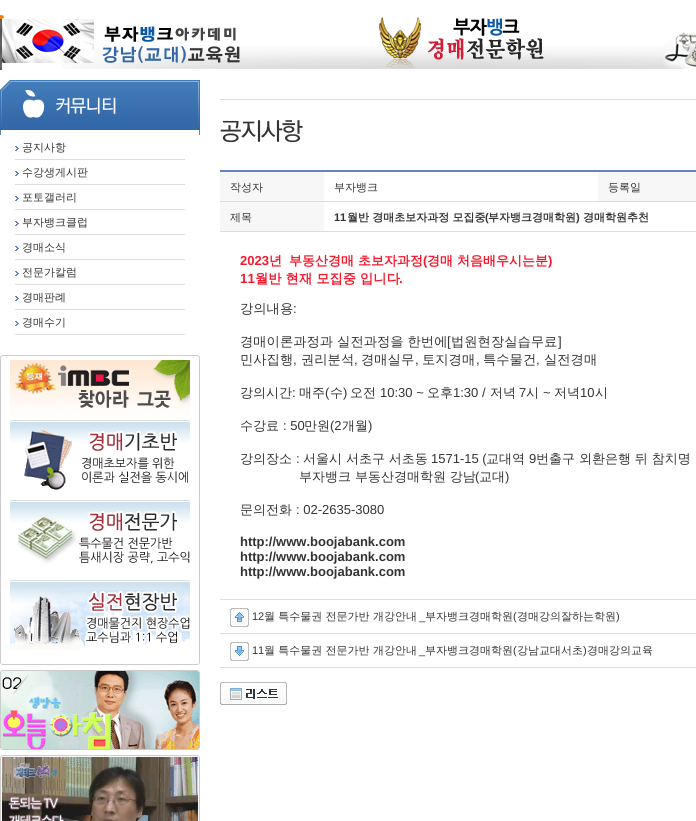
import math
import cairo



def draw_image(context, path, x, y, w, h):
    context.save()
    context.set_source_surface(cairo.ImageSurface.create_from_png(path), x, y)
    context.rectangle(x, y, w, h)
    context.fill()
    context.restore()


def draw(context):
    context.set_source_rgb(1, 1, 1)
    context.paint()
    draw_image(context, "images/1.png", 62, 46, 631, 23)
    draw_image(context, "images/2.png", 0, 15, 240, 55)
    draw_image(context, "images/3.png", 379, 17, 165, 52)
    draw_image(context, "images/4.png", 663, 32, 33, 37)
    draw_image(context, "images/5.png", 0, 80, 200, 55)
    context.set_source_rgb(221 / 255, 221 / 255, 221 / 255)
    context.rectangle(15, 159, 170, 1)
    context.fill()
    draw_image(context, "images/6.png", 15, 146, 4, 5)
    context.rectangle(15, 184, 170, 1)
    context.fill()
    draw_image(context, "images/6.png", 15, 171, 4, 5)
    context.rectangle(15, 209, 170, 1)
    context.fill()
    draw_image(context, "images/6.png", 15, 196, 4, 5)
    context.rectangle(15, 234, 170, 1)
    context.fill()
    draw_image(context, "images/6.png", 15, 221, 4, 5)
    context.rectangle(15, 259, 170, 1)
    context.fill()
    draw_image(context, "images/6.png", 15, 246, 4, 5)
    context.rectangle(15, 284, 170, 1)
    context.fill()
    draw_image(context, "images/6.png", 15, 271, 4, 5)
    context.rectangle(15, 309, 170, 1)
    context.fill()
    draw_image(context, "images/6.png", 15, 296, 4, 5)
    context.rectangle(15, 334, 170, 1)
    context.fill()
    draw_image(context, "images/6.png", 15, 321, 4, 5)
    draw_image(context, "images/7.png", 0, 355, 200, 5)
    draw_image(context, "images/8.png", 0, 360, 200, 60)
    draw_image(context, "images/9.png", 0, 420, 200, 80)
    draw_image(context, "images/10.png", 0, 500, 200, 80)
    draw_image(context, "images/11.png", 0, 580, 200, 80)
    draw_image(context, "images/12.png", 0, 660, 200, 5)
    draw_image(context, "images/13.png", 0, 670, 200, 80)
    draw_image(context, "images/14.png", 0, 755, 200, 66)
    context.rectangle(220, 99, 476, 1)
    context.fill()
    draw_image(context, "images/15.png", 220, 120, 83, 23)
    context.set_source_rgb(99 / 255, 133 / 255, 188 / 255)
    context.rectangle(220, 170, 476, 2)
    context.fill()
    context.set_source_rgb(247 / 255, 247 / 255, 247 / 255)
    context.rectangle(220, 172, 104, 29)
    context.fill()
    context.set_source_rgb(221 / 255, 221 / 255, 221 / 255)
    context.rectangle(220, 201, 476, 1)
    context.fill()
    context.set_source_rgb(247 / 255, 247 / 255, 247 / 255)
    context.rectangle(598, 172, 98, 29)
    context.fill()
    context.rectangle(220, 202, 104, 29)
    context.fill()
    context.set_source_rgb(221 / 255, 221 / 255, 221 / 255)
    context.rectangle(220, 231, 476, 1)
    context.fill()
    context.rectangle(220, 599, 476, 1)
    context.fill()
    context.rectangle(220, 633, 476, 1)
    context.fill()
    draw_image(context, "images/16.png", 230, 608, 19, 19)
    context.rectangle(220, 667, 476, 1)
    context.fill()
    draw_image(context, "images/17.png", 230, 642, 19, 19)
    draw_image(context, "images/18.png", 220, 682, 67, 23)
    context.select_font_face("WenQuanYi Zen Hei Medium")
    context.set_font_size(11)
    context.set_source_rgb(51 / 255, 51 / 255, 51 / 255)
    context.move_to(22, 151)
    context.show_text("공지사항")
    context.move_to(22, 176)
    context.show_text("수강생게시판")
    context.move_to(22, 201)
    context.show_text("포토갤러리")
    context.move_to(22, 226)
    context.show_text("부자뱅크클럽")
    context.move_to(22, 251)
    context.show_text("경매소식")
    context.move_to(22, 276)
    context.show_text("전문가칼럼")
    context.move_to(22, 301)
    context.show_text("경매판례")
    context.move_to(22, 326)
    context.show_text("경매수기")
    context.move_to(230, 191)
    context.show_text("작성자")
    context.move_to(334, 191)
    context.show_text("부자뱅크")
    context.move_to(608, 191)
    context.show_text("등록일")
    context.move_to(230, 221)
    context.show_text("제목")
    context.select_font_face("Liberation Sans", cairo.FontSlant.NORMAL, cairo.FontWeight.BOLD)
    context.move_to(334, 221)
    context.show_text("11")
    context.select_font_face("WenQuanYi Zen Hei", cairo.FontSlant.NORMAL, cairo.FontWeight.BOLD)
    context.move_to(347, 221)
    context.show_text("월반 경매초보자과정 모집중")
    context.select_font_face("Liberation Sans", cairo.FontSlant.NORMAL, cairo.FontWeight.BOLD)
    context.move_to(485, 221)
    context.show_text("(")
    context.select_font_face("WenQuanYi Zen Hei", cairo.FontSlant.NORMAL, cairo.FontWeight.BOLD)
    context.move_to(488, 221)
    context.show_text("부자뱅크경매학원")
    context.select_font_face("Liberation Sans", cairo.FontSlant.NORMAL, cairo.FontWeight.BOLD)
    context.move_to(576, 221)
    context.show_text(")")
    context.select_font_face("WenQuanYi Zen Hei", cairo.FontSlant.NORMAL, cairo.FontWeight.BOLD)
    context.move_to(583, 221)
    context.show_text("경매학원추천")
    context.select_font_face("Liberation Sans", cairo.FontSlant.NORMAL, cairo.FontWeight.BOLD)
    context.set_font_size(13)
    context.set_source_rgb(246 / 255, 24 / 255, 45 / 255)
    context.move_to(240, 265)
    context.show_text("2023")
    context.select_font_face("WenQuanYi Zen Hei", cairo.FontSlant.NORMAL, cairo.FontWeight.BOLD)
    context.move_to(269, 265)
    context.show_text("년")
    context.move_to(289, 265)
    context.show_text("부동산경매 초보자과정")
    context.select_font_face("Liberation Sans", cairo.FontSlant.NORMAL, cairo.FontWeight.BOLD)
    context.move_to(423, 265)
    context.show_text("(")
    context.select_font_face("WenQuanYi Zen Hei", cairo.FontSlant.NORMAL, cairo.FontWeight.BOLD)
    context.move_to(427, 265)
    context.show_text("경매 처음배우시는분")
    context.select_font_face("Liberation Sans", cairo.FontSlant.NORMAL, cairo.FontWeight.BOLD)
    context.move_to(548, 265)
    context.show_text(")")
    context.set_font_size(13.3)
    context.move_to(240, 283)
    context.show_text("11")
    context.select_font_face("WenQuanYi Zen Hei", cairo.FontSlant.NORMAL, cairo.FontWeight.BOLD)
    context.move_to(255, 283)
    context.show_text("월반 현재 모집중 입니다")
    context.select_font_face("Liberation Sans", cairo.FontSlant.NORMAL, cairo.FontWeight.BOLD)
    context.move_to(399, 283)
    context.show_text(".")
    context.select_font_face("WenQuanYi Zen Hei Medium")
    context.set_source_rgb(51 / 255, 51 / 255, 51 / 255)
    context.move_to(240, 313)
    context.show_text("강의내용")
    context.select_font_face("Liberation Sans")
    context.move_to(293, 313)
    context.show_text(":")
    context.select_font_face("WenQuanYi Zen Hei Medium")
    context.move_to(240, 346)
    context.show_text("경매이론과정과 실전과정을 한번에")
    context.select_font_face("Liberation Sans")
    context.move_to(447, 346)
    context.show_text("[")
    context.select_font_face("WenQuanYi Zen Hei Medium")
    context.move_to(451, 346)
    context.show_text("법원현장실습무료")
    context.select_font_face("Liberation Sans")
    context.move_to(558, 346)
    context.show_text("]")
    context.select_font_face("WenQuanYi Zen Hei Medium")
    context.move_to(240, 364)
    context.show_text("민사집행")
    context.select_font_face("Liberation Sans")
    context.move_to(293, 364)
    context.show_text(",")
    context.select_font_face("WenQuanYi Zen Hei Medium")
    context.move_to(301, 364)
    context.show_text("권리분석")
    context.select_font_face("Liberation Sans")
    context.move_to(354, 364)
    context.show_text(",")
    context.select_font_face("WenQuanYi Zen Hei Medium")
    context.move_to(361, 364)
    context.show_text("경매실무")
    context.select_font_face("Liberation Sans")
    context.move_to(415, 364)
    context.show_text(",")
    context.select_font_face("WenQuanYi Zen Hei Medium")
    context.move_to(422, 364)
    context.show_text("토지경매")
    context.select_font_face("Liberation Sans")
    context.move_to(476, 364)
    context.show_text(",")
    context.select_font_face("WenQuanYi Zen Hei Medium")
    context.move_to(483, 364)
    context.show_text("특수물건")
    context.select_font_face("Liberation Sans")
    context.move_to(536, 364)
    context.show_text(",")
    context.select_font_face("WenQuanYi Zen Hei Medium")
    context.move_to(544, 364)
    context.show_text("실전경매")
    context.set_font_size(13)
    context.move_to(240, 397)
    context.show_text("강의시간")
    context.select_font_face("Liberation Sans")
    context.move_to(292, 397)
    context.show_text(":")
    context.select_font_face("WenQuanYi Zen Hei Medium")
    context.move_to(299, 397)
    context.show_text("매주")
    context.select_font_face("Liberation Sans")
    context.move_to(325, 397)
    context.show_text("(")
    context.select_font_face("WenQuanYi Zen Hei Medium")
    context.move_to(330, 397)
    context.show_text("수")
    context.select_font_face("Liberation Sans")
    context.move_to(343, 397)
    context.show_text(")")
    context.select_font_face("WenQuanYi Zen Hei Medium")
    context.move_to(350, 397)
    context.show_text("오전")
    context.select_font_face("Liberation Sans")
    context.move_to(380, 397)
    context.show_text("10:30 ~")
    context.select_font_face("WenQuanYi Zen Hei Medium")
    context.move_to(427, 397)
    context.show_text("오후")
    context.select_font_face("Liberation Sans")
    context.move_to(453, 397)
    context.show_text("1:30 /")
    context.select_font_face("WenQuanYi Zen Hei Medium")
    context.move_to(490, 397)
    context.show_text("저녁")
    context.select_font_face("Liberation Sans")
    context.move_to(519, 397)
    context.show_text("7")
    context.select_font_face("WenQuanYi Zen Hei Medium")
    context.move_to(526, 397)
    context.show_text("시")
    context.select_font_face("Liberation Sans")
    context.move_to(543, 397)
    context.show_text("~")
    context.select_font_face("WenQuanYi Zen Hei Medium")
    context.move_to(554, 397)
    context.show_text("저녁")
    context.select_font_face("Liberation Sans")
    context.move_to(580, 397)
    context.show_text("10")
    context.select_font_face("WenQuanYi Zen Hei Medium")
    context.move_to(595, 397)
    context.show_text("시")
    context.move_to(240, 430)
    context.show_text("수강료")
    context.select_font_face("Liberation Sans")
    context.move_to(283, 430)
    context.show_text(": 50")
    context.select_font_face("WenQuanYi Zen Hei Medium")
    context.move_to(304, 430)
    context.show_text("만원")
    context.select_font_face("Liberation Sans")
    context.move_to(330, 430)
    context.show_text("(2")
    context.select_font_face("WenQuanYi Zen Hei Medium")
    context.move_to(342, 430)
    context.show_text("개월")
    context.select_font_face("Liberation Sans")
    context.move_to(368, 430)
    context.show_text(")")
    context.select_font_face("WenQuanYi Zen Hei Medium")
    context.move_to(240, 463)
    context.show_text("강의장소")
    context.select_font_face("Liberation Sans")
    context.move_to(296, 463)
    context.show_text(":")
    context.select_font_face("WenQuanYi Zen Hei Medium")
    context.move_to(303, 463)
    context.show_text("서울시 서초구 서초동")
    context.select_font_face("Liberation Sans")
    context.move_to(431, 463)
    context.show_text("1571-15 (")
    context.select_font_face("WenQuanYi Zen Hei Medium")
    context.move_to(486, 463)
    context.show_text("교대역")
    context.select_font_face("Liberation Sans")
    context.move_to(529, 463)
    context.show_text("9")
    context.select_font_face("WenQuanYi Zen Hei Medium")
    context.move_to(536, 463)
    context.show_text("번출구 외환은행 뒤 참치명")
    context.move_to(299, 481)
    context.show_text("부자뱅크 부동산경매학원 강남")
    context.select_font_face("Liberation Sans")
    context.move_to(475, 481)
    context.show_text("(")
    context.select_font_face("WenQuanYi Zen Hei Medium")
    context.move_to(479, 481)
    context.show_text("교대")
    context.select_font_face("Liberation Sans")
    context.move_to(505, 481)
    context.show_text(")")
    context.select_font_face("WenQuanYi Zen Hei Medium")
    context.move_to(240, 514)
    context.show_text("문의전화")
    context.select_font_face("Liberation Sans")
    context.move_to(296, 514)
    context.show_text(": 02-2635-3080")
    context.select_font_face("Liberation Sans", cairo.FontSlant.NORMAL, cairo.FontWeight.BOLD)
    context.move_to(240, 546)
    context.show_text("http://www.boojabank.com")
    context.move_to(240, 561)
    context.show_text("http://www.boojabank.com")
    context.move_to(240, 576)
    context.show_text("http://www.boojabank.com")
    context.select_font_face("Liberation Sans")
    context.set_font_size(11)
    context.move_to(252, 620)
    context.show_text("12")
    context.select_font_face("WenQuanYi Zen Hei Medium")
    context.move_to(264, 620)
    context.show_text("월 특수물권 전문가반 개강안내")
    context.select_font_face("Liberation Sans")
    context.move_to(419, 620)
    context.show_text("_")
    context.select_font_face("WenQuanYi Zen Hei Medium")
    context.move_to(425, 620)
    context.show_text("부자뱅크경매학원")
    context.select_font_face("Liberation Sans")
    context.move_to(513, 620)
    context.show_text("(")
    context.select_font_face("WenQuanYi Zen Hei Medium")
    context.move_to(517, 620)
    context.show_text("경매강의잘하는학원")
    context.select_font_face("Liberation Sans")
    context.move_to(616, 620)
    context.show_text(")")
    context.move_to(252, 654)
    context.show_text("11")
    context.select_font_face("WenQuanYi Zen Hei Medium")
    context.move_to(264, 654)
    context.show_text("월 특수물권 전문가반 개강안내")
    context.select_font_face("Liberation Sans")
    context.move_to(419, 654)
    context.show_text("_")
    context.select_font_face("WenQuanYi Zen Hei Medium")
    context.move_to(425, 654)
    context.show_text("부자뱅크경매학원")
    context.select_font_face("Liberation Sans")
    context.move_to(513, 654)
    context.show_text("(")
    context.select_font_face("WenQuanYi Zen Hei Medium")
    context.move_to(517, 654)
    context.show_text("강남교대서초")
    context.select_font_face("Liberation Sans")
    context.move_to(583, 654)
    context.show_text(")")
    context.select_font_face("WenQuanYi Zen Hei Medium")
    context.move_to(587, 654)
    context.show_text("경매강의교육")


surface = cairo.ImageSurface(cairo.Format.RGB24, 696, 821)
context = cairo.Context(surface)
options = cairo.FontOptions()
options.set_hint_metrics(cairo.HintMetrics.OFF)
options.set_hint_style(cairo.HintStyle.NONE)
context.set_font_options(options)
context.set_miter_limit(4)
draw(context)
surface.write_to_png("out.png")
